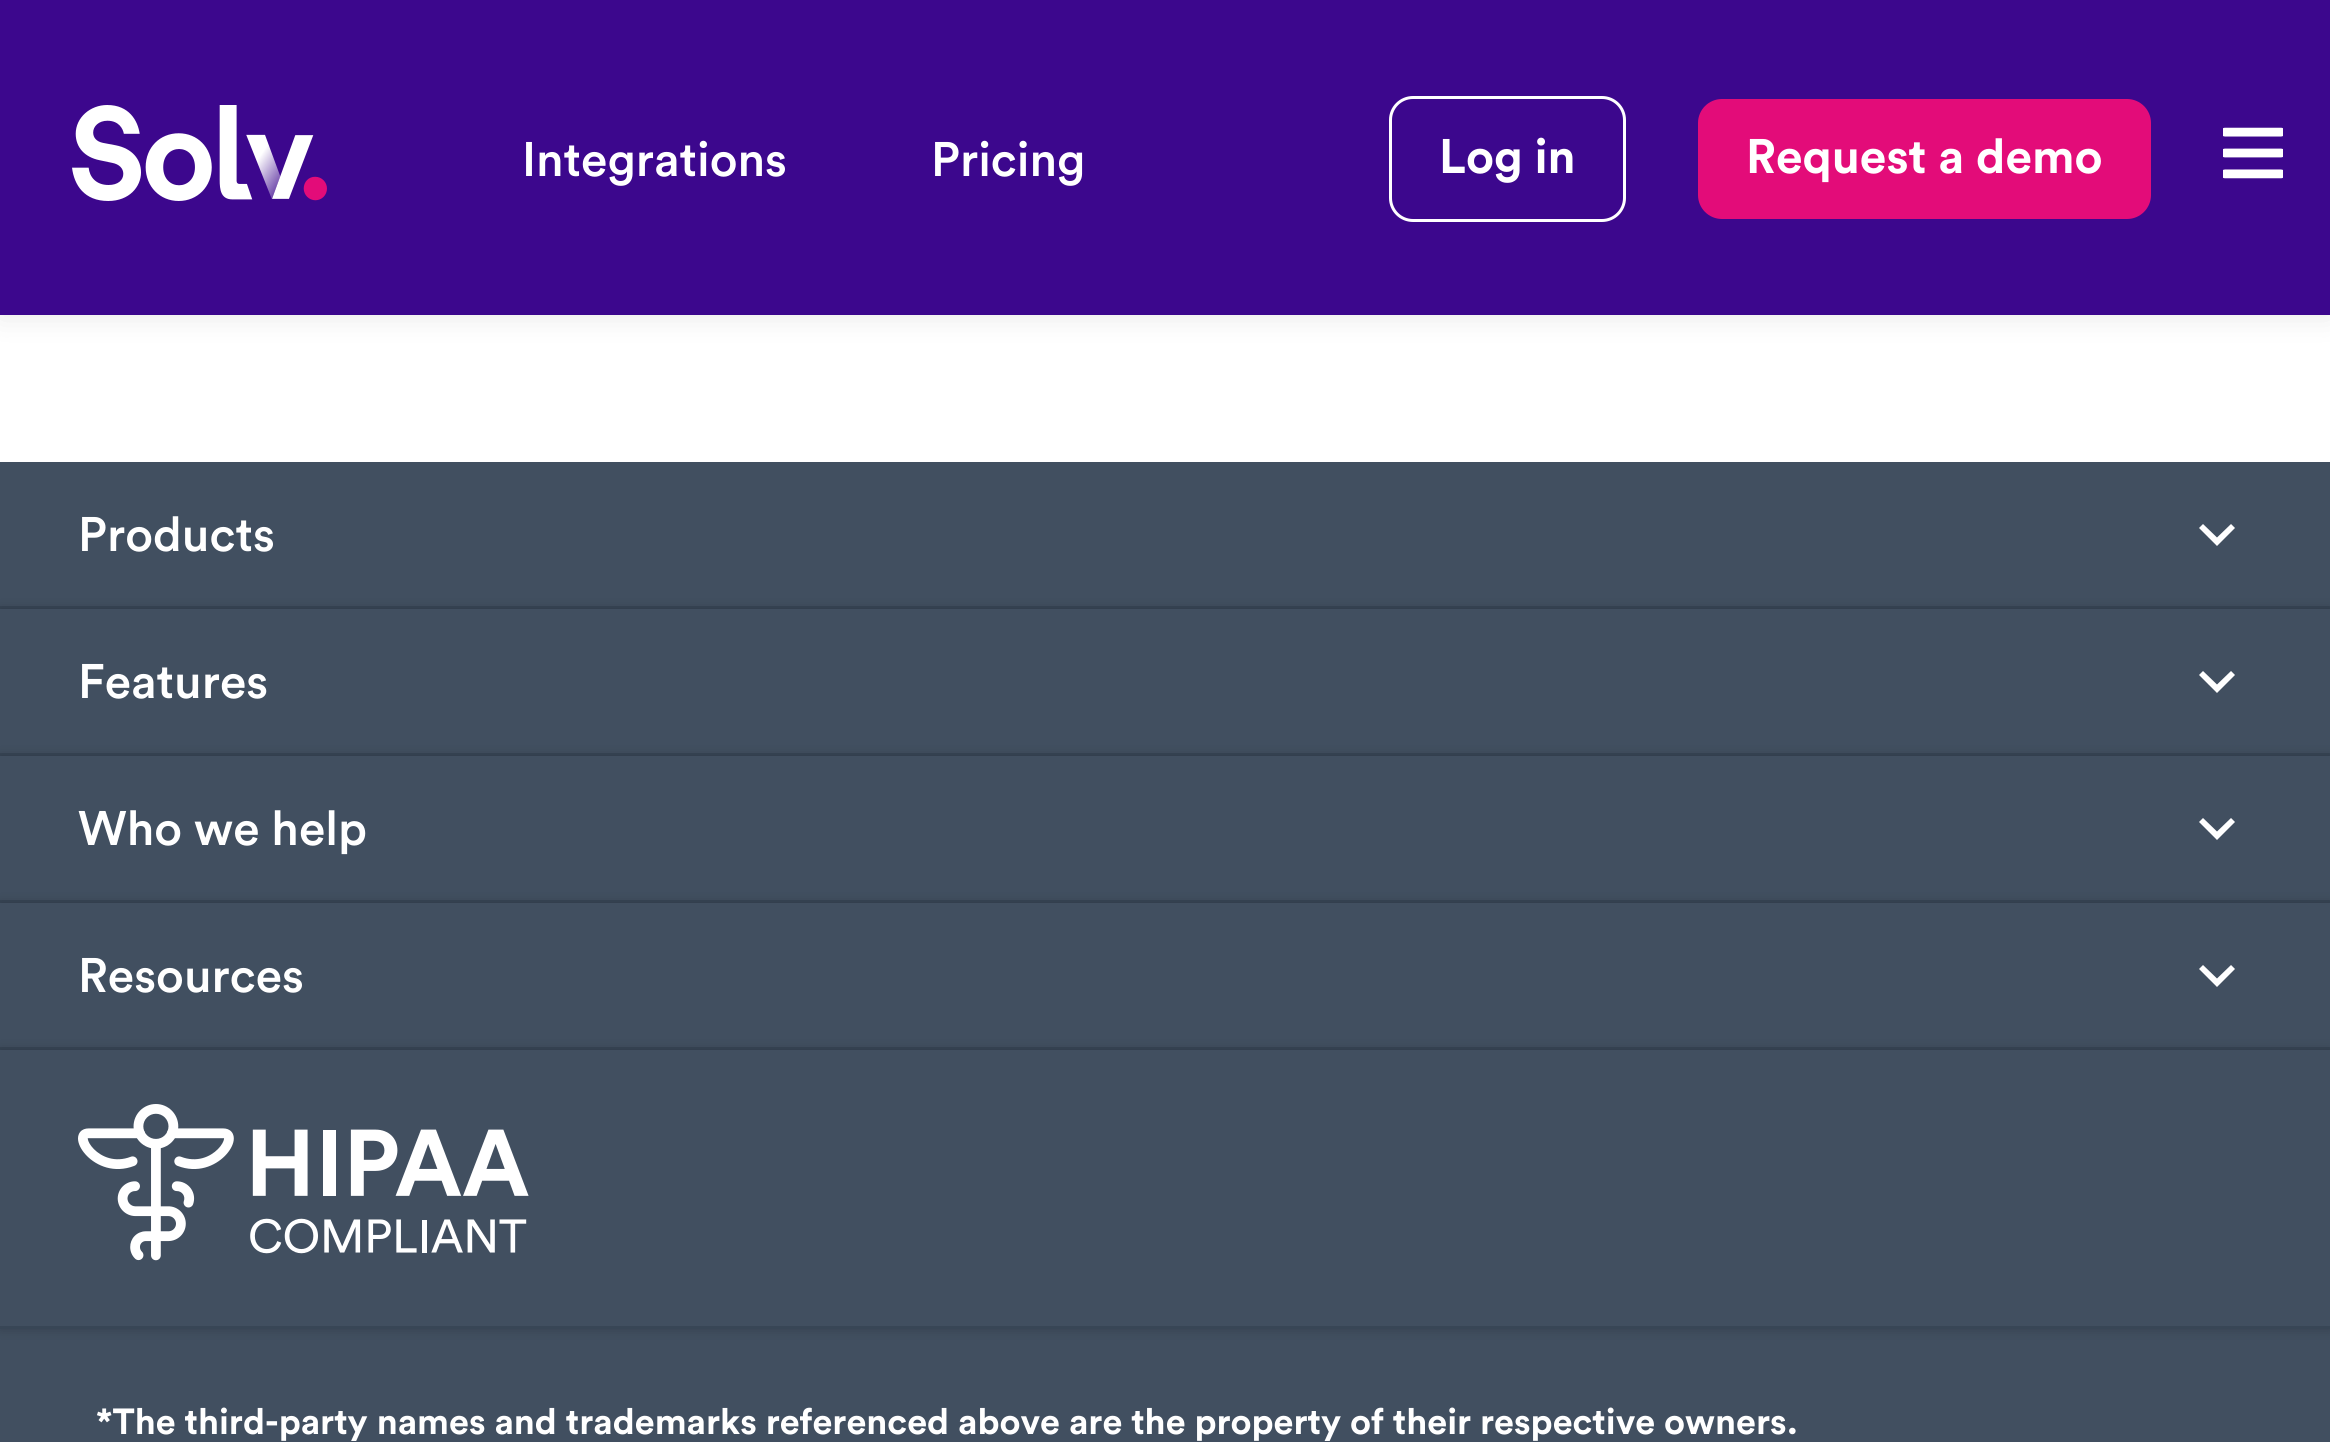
import math
import cairo



def rounded_rect(context, x, y, w, h, r):
    context.new_sub_path()
    for i, (u, v) in enumerate([(x + w - r, y + h - r), (x + r, y + h - r), (x + r, y + r), (x + w - r, y + r)]):
        context.arc(u, v, r, i * math.pi / 2, (i + 1) * math.pi / 2)
    context.close_path()


def draw_shadow(context, x, y, w, h, r, blur, alpha):
    context.push_group_with_content(cairo.Content.ALPHA)
    context.set_operator(cairo.Operator.SOURCE)
    for i in range(15, -16, -2):
        e = blur * i / 6
        if min(w, h) + 2 * e > 0:
            context.set_source_rgba(0, 0, 0, alpha * math.erfc((i - 1) / 8.5) / 2)
            rounded_rect(context, x - e, y - e, w + 2 * e, h + 2 * e, max(0, min(r + e + blur * .6, min(w, h) / 2 + e)))
            context.fill()
    context.mask(context.pop_group())


def draw_image(context, path, x, y, w, h):
    context.save()
    context.set_source_surface(cairo.ImageSurface.create_from_png(path), x, y)
    context.rectangle(x, y, w, h)
    context.fill()
    context.restore()


def draw(context):
    context.set_source_rgb(1, 1, 1)
    context.paint()
    context.set_source_rgb(0, 0, 0)
    draw_shadow(context, 0, 0, 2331, 315, 0, 15, 0.1)
    context.set_source_rgb(60 / 255, 7 / 255, 141 / 255)
    context.rectangle(0, 0, 2330, 315)
    context.fill()
    draw_image(context, "images/1.png", 72, 105, 255, 96)
    rounded_rect(context, 1390.5, 97.5, 234, 123, 22.5)
    context.set_source_rgb(1, 1, 1)
    context.set_line_width(3)
    context.stroke()
    context.set_source_rgb(227 / 255, 12 / 255, 121 / 255)
    rounded_rect(context, 1698, 99, 453, 120, 24)
    context.fill()
    draw_image(context, "images/2.png", 2223, 127, 60, 52)
    context.set_source_rgb(65 / 255, 79 / 255, 96 / 255)
    context.rectangle(0, 1329, 2330, 113)
    context.fill()
    context.rectangle(0, 462, 2330, 144)
    context.fill()
    context.set_source_rgb(56 / 255, 70 / 255, 86 / 255)
    context.rectangle(0, 606, 2330, 3)
    context.fill()
    context.set_source_rgb(1, 1, 1)
    context.new_path()
    context.move_to(2231, 524)
    context.line_to(2217, 537.5)
    context.line_to(2203, 524)
    context.line_to(2199, 528)
    context.line_to(2217, 546)
    context.line_to(2235, 528)
    context.close_path()
    context.fill()
    context.set_source_rgb(0, 0, 0)
    draw_shadow(context, 0, 609, 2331, 147, 0, 6, 0.2)
    context.set_source_rgb(65 / 255, 79 / 255, 96 / 255)
    context.rectangle(0, 609, 2330, 144)
    context.fill()
    context.set_source_rgb(56 / 255, 70 / 255, 86 / 255)
    context.rectangle(0, 753, 2330, 3)
    context.fill()
    context.set_source_rgb(1, 1, 1)
    context.new_path()
    context.move_to(2231, 671)
    context.line_to(2217, 684.5)
    context.line_to(2203, 671)
    context.line_to(2199, 675)
    context.line_to(2217, 693)
    context.line_to(2235, 675)
    context.close_path()
    context.fill()
    context.set_source_rgb(0, 0, 0)
    draw_shadow(context, 0, 756, 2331, 147, 0, 6, 0.2)
    context.set_source_rgb(65 / 255, 79 / 255, 96 / 255)
    context.rectangle(0, 756, 2330, 144)
    context.fill()
    context.set_source_rgb(56 / 255, 70 / 255, 86 / 255)
    context.rectangle(0, 900, 2330, 3)
    context.fill()
    context.set_source_rgb(1, 1, 1)
    context.new_path()
    context.move_to(2231, 818)
    context.line_to(2217, 831.5)
    context.line_to(2203, 818)
    context.line_to(2199, 822)
    context.line_to(2217, 840)
    context.line_to(2235, 822)
    context.close_path()
    context.fill()
    context.set_source_rgb(0, 0, 0)
    draw_shadow(context, 0, 903, 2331, 147, 0, 6, 0.2)
    context.set_source_rgb(65 / 255, 79 / 255, 96 / 255)
    context.rectangle(0, 903, 2330, 144)
    context.fill()
    context.set_source_rgb(56 / 255, 70 / 255, 86 / 255)
    context.rectangle(0, 1047, 2330, 3)
    context.fill()
    context.set_source_rgb(1, 1, 1)
    context.new_path()
    context.move_to(2231, 965)
    context.line_to(2217, 978.5)
    context.line_to(2203, 965)
    context.line_to(2199, 969)
    context.line_to(2217, 987)
    context.line_to(2235, 969)
    context.close_path()
    context.fill()
    context.set_source_rgb(0, 0, 0)
    draw_shadow(context, 0, 1050, 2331, 279, 0, 6, 0.2)
    context.set_source_rgb(65 / 255, 79 / 255, 96 / 255)
    context.rectangle(0, 1050, 2330, 276)
    context.fill()
    context.set_source_rgb(56 / 255, 70 / 255, 86 / 255)
    context.rectangle(0, 1326, 2330, 3)
    context.fill()
    draw_image(context, "images/3.png", 78, 1104, 451, 157)
    context.select_font_face("Circular Medium")
    context.set_font_size(48)
    context.set_source_rgb(1, 1, 1)
    context.move_to(522, 176)
    context.show_text("Integrations")
    context.move_to(931, 176)
    context.show_text("Pricing")
    context.select_font_face("Circular", cairo.FontSlant.NORMAL, cairo.FontWeight.BOLD)
    context.move_to(1439, 173)
    context.show_text("Log in")
    context.move_to(1746, 173)
    context.show_text("Request a demo")
    context.select_font_face("Circular Medium")
    context.move_to(78, 551)
    context.show_text("Products")
    context.move_to(78, 698)
    context.show_text("Features")
    context.move_to(78, 845)
    context.show_text("Who we help")
    context.move_to(78, 992)
    context.show_text("Resources")
    context.select_font_face("Circular", cairo.FontSlant.NORMAL, cairo.FontWeight.BOLD)
    context.set_font_size(36)
    context.move_to(96, 1434)
    context.show_text("*The third-party names and trademarks referenced above are the property of their respective owners.")


surface = cairo.ImageSurface(cairo.Format.RGB24, 2330, 1442)
context = cairo.Context(surface)
options = cairo.FontOptions()
options.set_hint_metrics(cairo.HintMetrics.OFF)
options.set_hint_style(cairo.HintStyle.NONE)
context.set_font_options(options)
context.set_miter_limit(4)
draw(context)
surface.write_to_png("out.png")
